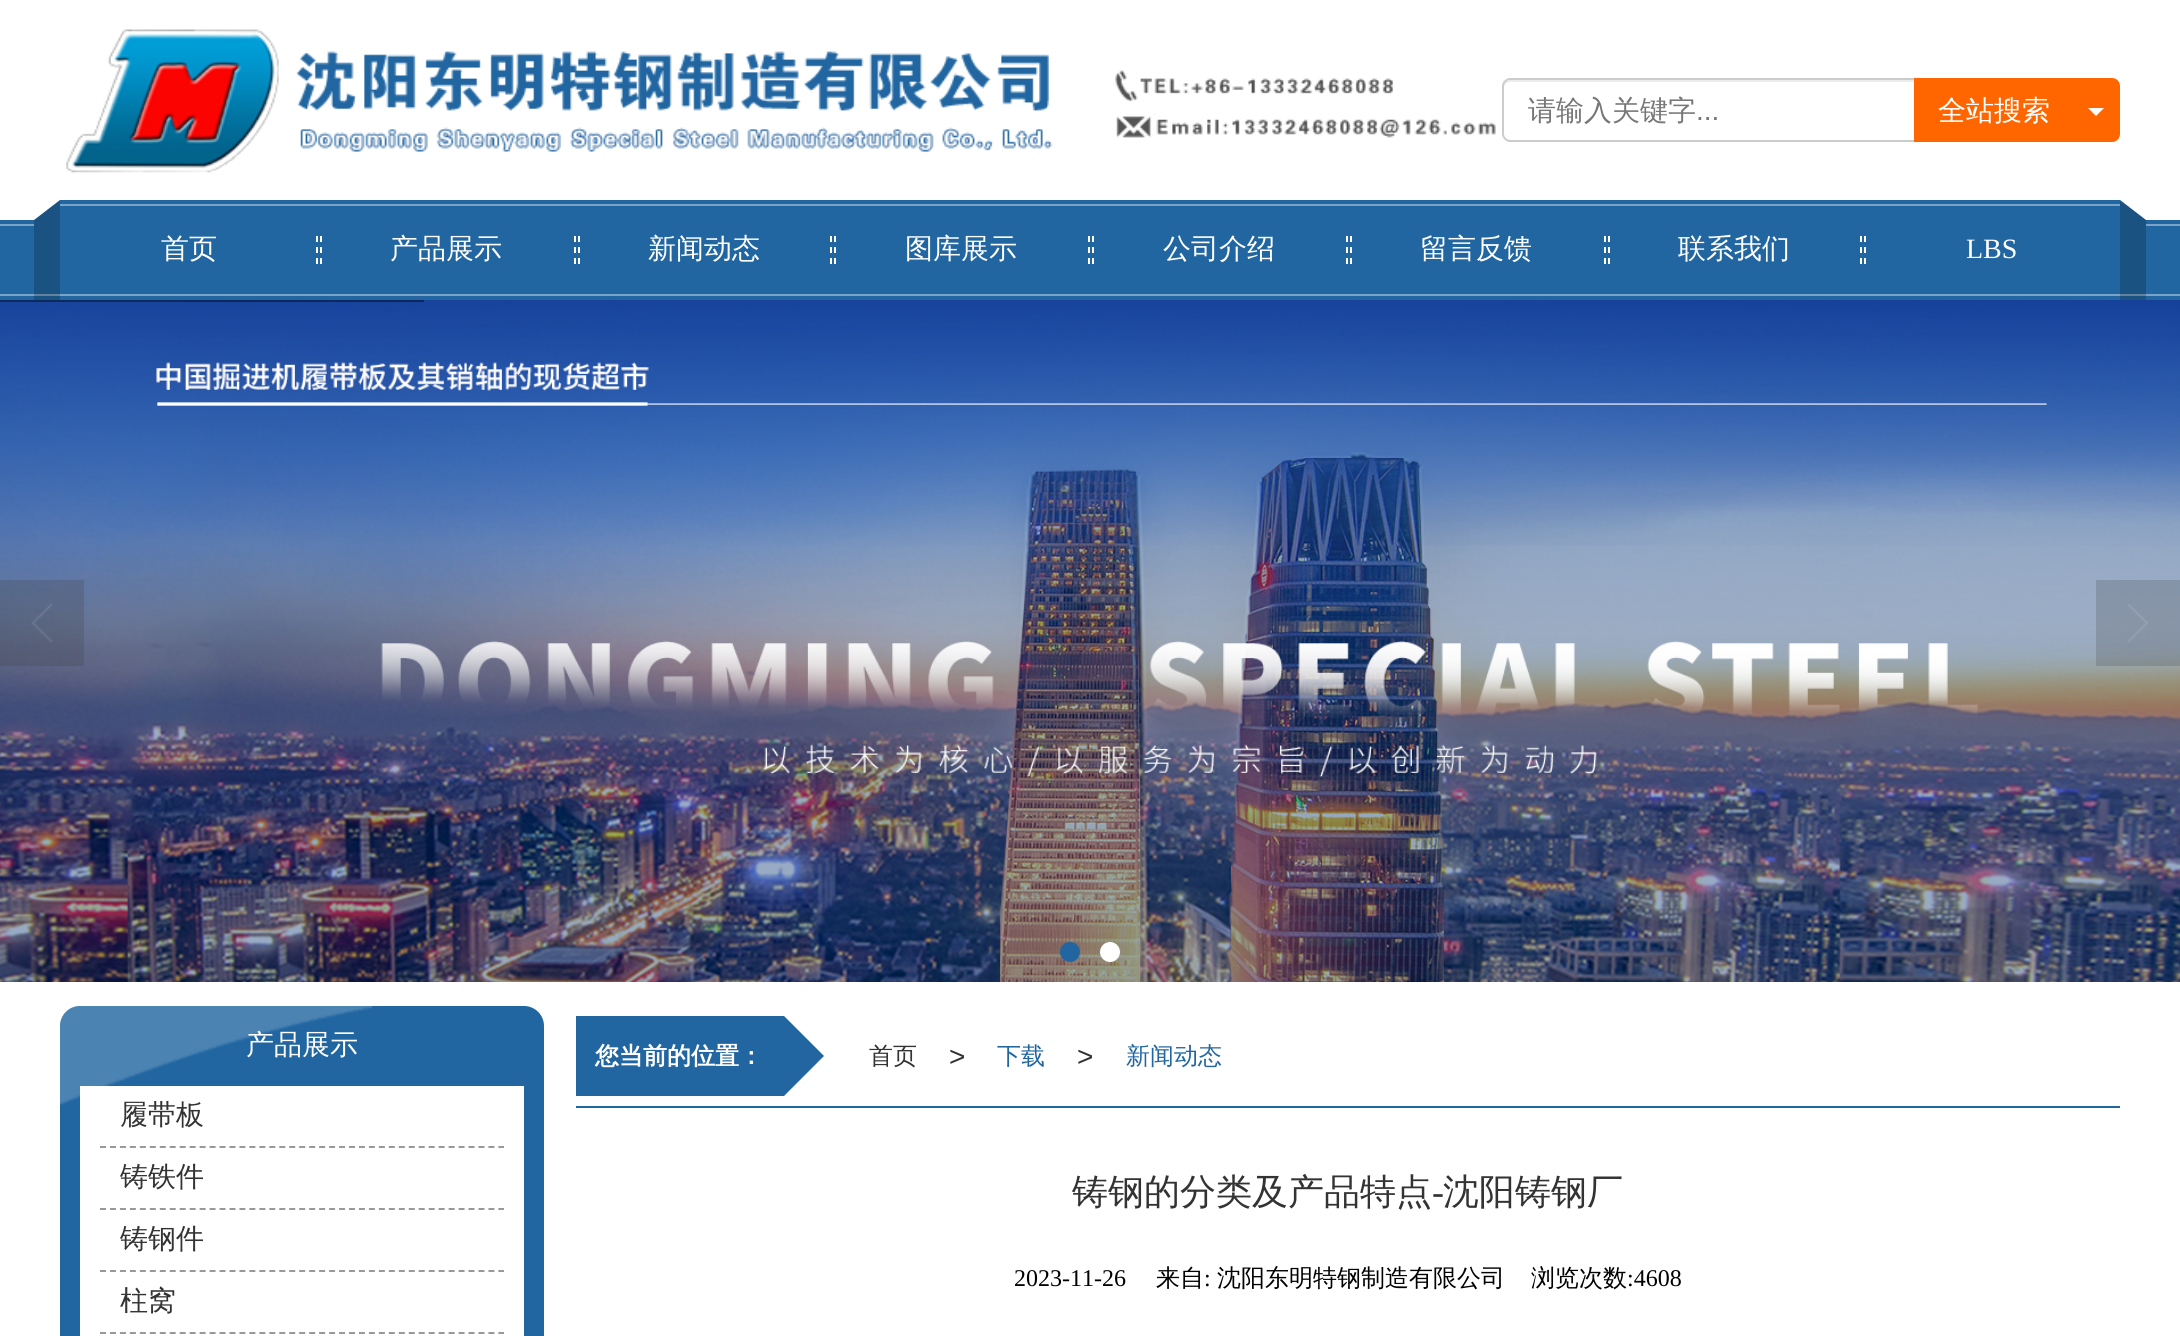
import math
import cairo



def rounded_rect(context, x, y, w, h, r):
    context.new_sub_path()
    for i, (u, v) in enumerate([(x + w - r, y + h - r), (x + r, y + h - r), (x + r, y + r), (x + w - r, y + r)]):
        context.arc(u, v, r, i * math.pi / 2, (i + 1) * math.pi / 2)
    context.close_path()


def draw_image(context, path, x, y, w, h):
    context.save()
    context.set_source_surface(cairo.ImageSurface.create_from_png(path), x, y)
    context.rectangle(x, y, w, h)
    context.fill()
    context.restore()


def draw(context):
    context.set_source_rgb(1, 1, 1)
    context.paint()
    draw_image(context, "images/1.png", 66, 29, 1430, 144)
    context.set_source_rgb(236 / 255, 236 / 255, 236 / 255)
    context.new_path()
    context.move_to(1510, 82)
    context.line_to(1914, 82)
    context.line_to(1914, 80)
    context.line_to(1510, 80)
    context.curve_to(1507, 80, 1504, 83, 1504, 86)
    context.line_to(1504, 88)
    context.curve_to(1504, 85, 1507, 82, 1510, 82)
    context.close_path()
    context.fill()
    context.set_source_rgb(204 / 255, 204 / 255, 204 / 255)
    context.set_fill_rule(cairo.FillRule.EVEN_ODD)
    context.new_path()
    context.move_to(1510, 78)
    context.line_to(1914, 78)
    context.line_to(1914, 142)
    context.line_to(1510, 142)
    context.curve_to(1506, 142, 1502, 138, 1502, 134)
    context.line_to(1502, 86)
    context.curve_to(1502, 82, 1506, 78, 1510, 78)
    context.close_path()
    context.move_to(1510, 80)
    context.line_to(1914, 80)
    context.line_to(1914, 140)
    context.line_to(1510, 140)
    context.curve_to(1507, 140, 1504, 137, 1504, 134)
    context.line_to(1504, 86)
    context.curve_to(1504, 83, 1507, 80, 1510, 80)
    context.close_path()
    context.fill()
    context.set_source_rgb(1, 102 / 255, 0)
    context.rectangle(1914, 78, 158, 64)
    context.fill()
    context.new_path()
    context.move_to(2072, 78)
    context.line_to(2112, 78)
    context.curve_to(2116.5, 78, 2120, 81.5, 2120, 86)
    context.line_to(2120, 134)
    context.curve_to(2120, 138.5, 2116.5, 142, 2112, 142)
    context.line_to(2072, 142)
    context.close_path()
    context.fill()
    context.set_source_rgb(1, 1, 1)
    context.set_fill_rule(cairo.FillRule.WINDING)
    context.new_path()
    context.move_to(2088, 108)
    context.line_to(2104, 108)
    context.line_to(2096, 116)
    context.close_path()
    context.fill()
    context.set_source_rgb(33 / 255, 102 / 255, 161 / 255)
    context.rectangle(0, 220, 2180, 80)
    context.fill()
    context.set_source_rgb(122 / 255, 163 / 255, 199 / 255)
    context.rectangle(0, 224, 2180, 2)
    context.fill()
    context.rectangle(0, 294, 2180, 2)
    context.fill()
    context.set_source_rgb(33 / 255, 102 / 255, 161 / 255)
    context.rectangle(60, 200, 2060, 96)
    context.fill()
    context.set_source_rgb(26 / 255, 82 / 255, 129 / 255)
    context.rectangle(34, 200, 26, 100)
    context.fill()
    context.set_source_rgb(1, 1, 1)
    context.new_path()
    context.move_to(34, 200)
    context.line_to(60, 200)
    context.line_to(34, 220)
    context.close_path()
    context.fill()
    context.set_source_rgb(98 / 255, 130 / 255, 159 / 255)
    context.rectangle(34, 294, 26, 2)
    context.fill()
    context.set_source_rgb(122 / 255, 163 / 255, 199 / 255)
    context.rectangle(60, 204, 2060, 2)
    context.fill()
    context.set_source_rgb(26 / 255, 82 / 255, 129 / 255)
    context.rectangle(2120, 200, 26, 100)
    context.fill()
    context.set_source_rgb(1, 1, 1)
    context.new_path()
    context.move_to(2146, 200)
    context.line_to(2146, 220)
    context.line_to(2120, 200)
    context.close_path()
    context.fill()
    context.set_source_rgb(98 / 255, 130 / 255, 159 / 255)
    context.rectangle(2120, 294, 26, 2)
    context.fill()
    context.new_path()
    context.move_to(321, 236)
    context.line_to(321, 242)
    context.move_to(321, 247)
    context.line_to(321, 253)
    context.move_to(321, 258)
    context.line_to(321, 264)
    context.move_to(317, 236)
    context.line_to(317, 242)
    context.move_to(317, 247)
    context.line_to(317, 253)
    context.move_to(317, 258)
    context.line_to(317, 264)
    context.set_source_rgb(1, 1, 1)
    context.stroke()
    context.new_path()
    context.move_to(579, 236)
    context.line_to(579, 242)
    context.move_to(579, 247)
    context.line_to(579, 253)
    context.move_to(579, 258)
    context.line_to(579, 264)
    context.move_to(575, 236)
    context.line_to(575, 242)
    context.move_to(575, 247)
    context.line_to(575, 253)
    context.move_to(575, 258)
    context.line_to(575, 264)
    context.stroke()
    context.new_path()
    context.move_to(835, 236)
    context.line_to(835, 242)
    context.move_to(835, 247)
    context.line_to(835, 253)
    context.move_to(835, 258)
    context.line_to(835, 264)
    context.move_to(831, 236)
    context.line_to(831, 242)
    context.move_to(831, 247)
    context.line_to(831, 253)
    context.move_to(831, 258)
    context.line_to(831, 264)
    context.stroke()
    context.new_path()
    context.move_to(1093, 236)
    context.line_to(1093, 242)
    context.move_to(1093, 247)
    context.line_to(1093, 253)
    context.move_to(1093, 258)
    context.line_to(1093, 264)
    context.move_to(1089, 236)
    context.line_to(1089, 242)
    context.move_to(1089, 247)
    context.line_to(1089, 253)
    context.move_to(1089, 258)
    context.line_to(1089, 264)
    context.stroke()
    context.new_path()
    context.move_to(1351, 236)
    context.line_to(1351, 242)
    context.move_to(1351, 247)
    context.line_to(1351, 253)
    context.move_to(1351, 258)
    context.line_to(1351, 264)
    context.move_to(1347, 236)
    context.line_to(1347, 242)
    context.move_to(1347, 247)
    context.line_to(1347, 253)
    context.move_to(1347, 258)
    context.line_to(1347, 264)
    context.stroke()
    context.new_path()
    context.move_to(1609, 236)
    context.line_to(1609, 242)
    context.move_to(1609, 247)
    context.line_to(1609, 253)
    context.move_to(1609, 258)
    context.line_to(1609, 264)
    context.move_to(1605, 236)
    context.line_to(1605, 242)
    context.move_to(1605, 247)
    context.line_to(1605, 253)
    context.move_to(1605, 258)
    context.line_to(1605, 264)
    context.stroke()
    context.new_path()
    context.move_to(1865, 236)
    context.line_to(1865, 242)
    context.move_to(1865, 247)
    context.line_to(1865, 253)
    context.move_to(1865, 258)
    context.line_to(1865, 264)
    context.move_to(1861, 236)
    context.line_to(1861, 242)
    context.move_to(1861, 247)
    context.line_to(1861, 253)
    context.move_to(1861, 258)
    context.line_to(1861, 264)
    context.stroke()
    context.set_source_rgb(122 / 255, 163 / 255, 199 / 255)
    context.rectangle(60, 294, 2060, 2)
    context.fill()
    draw_image(context, "images/2.png", 0, 300, 2180, 682)
    context.set_source_rgba(0, 0, 0, 0.4)
    context.rectangle(0, 300, 424, 2)
    context.fill()
    context.set_source_rgba(57 / 255, 57 / 255, 57 / 255, 0.2)
    context.rectangle(0, 580, 84, 86)
    context.fill()
    draw_image(context, "images/3.png", 31, 603, 22, 40)
    context.rectangle(2096, 580, 84, 86)
    context.fill()
    draw_image(context, "images/4.png", 2128, 604, 20, 38)
    context.set_source_rgb(33 / 255, 102 / 255, 161 / 255)
    context.arc(1070, 952, 10, 0, 2 * math.pi)
    context.fill()
    context.set_source_rgb(1, 1, 1)
    context.arc(1110, 952, 10, 0, 2 * math.pi)
    context.fill()
    context.set_source_rgb(33 / 255, 102 / 255, 161 / 255)
    rounded_rect(context, 60, 1006, 484, 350, 20)
    context.fill()
    draw_image(context, "images/5.png", 60, 1006, 312, 99)
    context.set_source_rgb(1, 1, 1)
    context.rectangle(80, 1086, 444, 250)
    context.fill()
    context.new_path()
    context.move_to(100, 1147)
    context.line_to(504, 1147)
    context.set_source_rgb(153 / 255, 153 / 255, 153 / 255)
    context.set_dash([6, 3.96])
    context.stroke()
    context.new_path()
    context.move_to(100, 1209)
    context.line_to(504, 1209)
    context.stroke()
    context.new_path()
    context.move_to(100, 1271)
    context.line_to(504, 1271)
    context.stroke()
    context.new_path()
    context.move_to(100, 1333)
    context.line_to(504, 1333)
    context.stroke()
    context.set_source_rgb(33 / 255, 102 / 255, 161 / 255)
    context.rectangle(576, 1106, 1544, 2)
    context.fill()
    context.rectangle(576, 1016, 208, 80)
    context.fill()
    context.new_path()
    context.move_to(784, 1096)
    context.line_to(784, 1016)
    context.line_to(824, 1056)
    context.close_path()
    context.fill()
    context.select_font_face("WenQuanYi Zen Hei Medium")
    context.set_font_size(28)
    context.set_source_rgb(119 / 255, 119 / 255, 119 / 255)
    context.move_to(1528, 120)
    context.show_text("请输入关键字")
    context.select_font_face("Liberation Sans")
    context.move_to(1696, 120)
    context.show_text("...")
    context.select_font_face("WenQuanYi Zen Hei Medium")
    context.set_source_rgb(1, 1, 1)
    context.move_to(1938, 120)
    context.show_text("全站搜索")
    context.move_to(161, 258)
    context.show_text("首页")
    context.move_to(390, 258)
    context.show_text("产品展示")
    context.move_to(648, 258)
    context.show_text("新闻动态")
    context.move_to(905, 258)
    context.show_text("图库展示")
    context.move_to(1163, 258)
    context.show_text("公司介绍")
    context.move_to(1420, 258)
    context.show_text("留言反馈")
    context.move_to(1678, 258)
    context.show_text("联系我们")
    context.select_font_face("Liberation Serif")
    context.move_to(1966, 258)
    context.show_text("LBS")
    context.select_font_face("WenQuanYi Zen Hei Medium")
    context.move_to(246, 1054)
    context.show_text("产品展示")
    context.set_source_rgb(51 / 255, 51 / 255, 51 / 255)
    context.move_to(120, 1124)
    context.show_text("履带板")
    context.move_to(120, 1186)
    context.show_text("铸铁件")
    context.move_to(120, 1248)
    context.show_text("铸钢件")
    context.move_to(120, 1310)
    context.show_text("柱窝")
    context.select_font_face("WenQuanYi Zen Hei", cairo.FontSlant.NORMAL, cairo.FontWeight.BOLD)
    context.set_font_size(24)
    context.set_source_rgb(1, 1, 1)
    context.move_to(595, 1064)
    context.show_text("您当前的位置：")
    context.select_font_face("WenQuanYi Zen Hei Medium")
    context.set_source_rgb(51 / 255, 51 / 255, 51 / 255)
    context.move_to(869, 1064)
    context.show_text("首页")
    context.select_font_face("Liberation Sans")
    context.set_font_size(28)
    context.move_to(949, 1066)
    context.show_text(">")
    context.select_font_face("WenQuanYi Zen Hei Medium")
    context.set_font_size(24)
    context.set_source_rgb(33 / 255, 102 / 255, 161 / 255)
    context.move_to(997, 1064)
    context.show_text("下载")
    context.select_font_face("Liberation Sans")
    context.set_font_size(28)
    context.set_source_rgb(51 / 255, 51 / 255, 51 / 255)
    context.move_to(1077, 1066)
    context.show_text(">")
    context.select_font_face("WenQuanYi Zen Hei Medium")
    context.set_font_size(24)
    context.set_source_rgb(33 / 255, 102 / 255, 161 / 255)
    context.move_to(1126, 1064)
    context.show_text("新闻动态")
    context.set_font_size(36)
    context.set_source_rgb(51 / 255, 51 / 255, 51 / 255)
    context.move_to(1072, 1204)
    context.show_text("铸钢的分类及产品特点")
    context.select_font_face("Liberation Serif")
    context.move_to(1432, 1204)
    context.show_text("-")
    context.select_font_face("WenQuanYi Zen Hei Medium")
    context.move_to(1443, 1204)
    context.show_text("沈阳铸钢厂")
    context.select_font_face("Liberation Serif")
    context.set_font_size(24)
    context.set_source_rgb(0, 0, 0)
    context.move_to(1014, 1286)
    context.show_text("2023-11-26")
    context.select_font_face("WenQuanYi Zen Hei Medium")
    context.move_to(1156, 1286)
    context.show_text("来自")
    context.select_font_face("Liberation Serif")
    context.move_to(1204, 1286)
    context.show_text(":")
    context.select_font_face("WenQuanYi Zen Hei Medium")
    context.move_to(1217, 1286)
    context.show_text("沈阳东明特钢制造有限公司")
    context.move_to(1531, 1286)
    context.show_text("浏览次数")
    context.select_font_face("Liberation Serif")
    context.move_to(1627, 1286)
    context.show_text(":4608")


surface = cairo.ImageSurface(cairo.Format.RGB24, 2180, 1336)
context = cairo.Context(surface)
options = cairo.FontOptions()
options.set_hint_metrics(cairo.HintMetrics.OFF)
options.set_hint_style(cairo.HintStyle.NONE)
context.set_font_options(options)
context.set_miter_limit(4)
draw(context)
surface.write_to_png("out.png")
